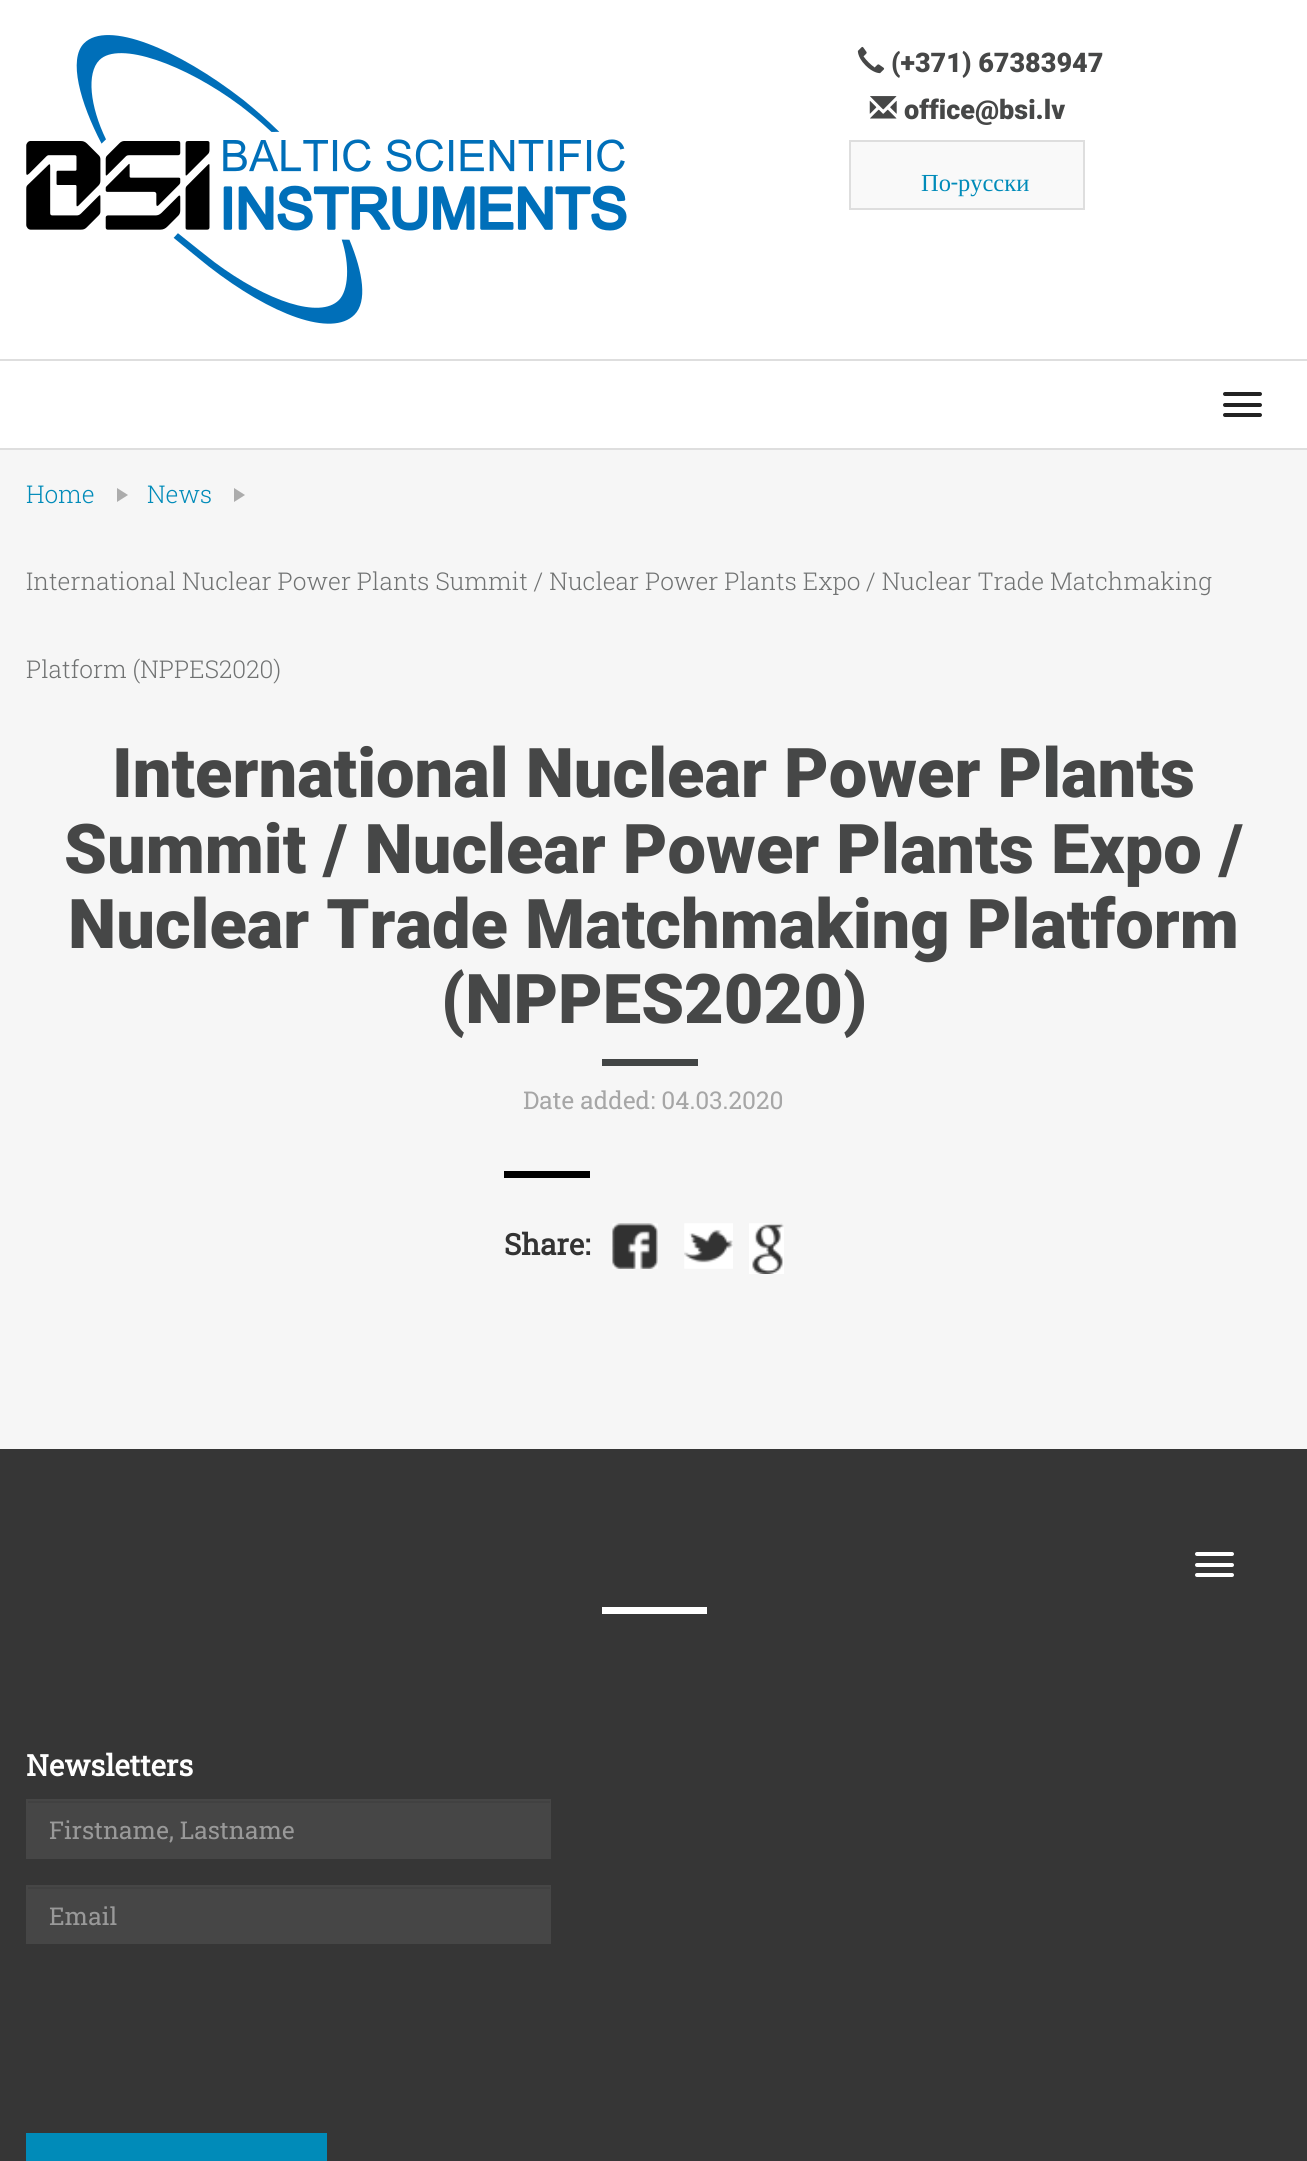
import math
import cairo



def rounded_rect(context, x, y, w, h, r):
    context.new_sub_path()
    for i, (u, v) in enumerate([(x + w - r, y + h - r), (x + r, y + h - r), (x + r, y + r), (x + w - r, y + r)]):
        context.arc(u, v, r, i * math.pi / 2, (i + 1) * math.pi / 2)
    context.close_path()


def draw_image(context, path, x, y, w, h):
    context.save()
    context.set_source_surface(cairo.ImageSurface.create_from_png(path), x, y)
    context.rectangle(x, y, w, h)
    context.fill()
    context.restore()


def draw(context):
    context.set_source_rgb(246 / 255, 246 / 255, 246 / 255)
    context.paint()
    context.set_source_rgb(1, 1, 1)
    context.rectangle(0, 0, 1307, 359)
    context.fill()
    draw_image(context, "images/1.png", 26, 35, 601, 289)
    draw_image(context, "images/2.png", 857, 46, 28, 28)
    draw_image(context, "images/3.png", 869, 96, 28, 23)
    context.set_source_rgb(249 / 255, 249 / 255, 249 / 255)
    context.rectangle(850, 141, 234, 68)
    context.fill_preserve()
    context.set_source_rgb(222 / 255, 222 / 255, 222 / 255)
    context.stroke()
    context.set_source_rgb(1, 1, 1)
    context.rectangle(0, 361, 1307, 87)
    context.fill()
    context.set_source_rgb(222 / 255, 222 / 255, 222 / 255)
    context.rectangle(0, 359, 1307, 2)
    context.fill()
    context.rectangle(0, 448, 1307, 2)
    context.fill()
    context.set_source_rgb(34 / 255, 34 / 255, 34 / 255)
    rounded_rect(context, 1223, 392, 39, 4, 2)
    context.fill()
    rounded_rect(context, 1223, 403, 39, 4, 2)
    context.fill()
    rounded_rect(context, 1223, 413, 39, 4, 2)
    context.fill()
    context.set_source_rgb(172 / 255, 172 / 255, 172 / 255)
    context.new_path()
    context.move_to(117, 488)
    context.line_to(117, 502)
    context.line_to(128, 495)
    context.close_path()
    context.fill()
    context.new_path()
    context.move_to(234, 488)
    context.line_to(234, 502)
    context.line_to(245, 495)
    context.close_path()
    context.fill()
    context.set_source_rgb(66 / 255, 69 / 255, 69 / 255)
    context.rectangle(602, 1059, 96, 7)
    context.fill()
    context.set_source_rgb(0, 0, 0)
    context.rectangle(504, 1171, 86, 7)
    context.fill()
    draw_image(context, "images/4.png", 612, 1223, 46, 46)
    draw_image(context, "images/5.png", 684, 1223, 49, 46)
    draw_image(context, "images/6.png", 749, 1223, 35, 51)
    context.set_source_rgb(54 / 255, 54 / 255, 54 / 255)
    context.rectangle(0, 1449, 1307, 712)
    context.fill()
    context.set_source_rgb(1, 1, 1)
    rounded_rect(context, 1195, 1552, 39, 4, 2)
    context.fill()
    rounded_rect(context, 1195, 1563, 39, 4, 2)
    context.fill()
    rounded_rect(context, 1195, 1573, 39, 4, 2)
    context.fill()
    context.rectangle(602, 1607, 105, 7)
    context.fill()
    context.set_source_rgb(70 / 255, 70 / 255, 70 / 255)
    context.rectangle(26, 1799, 525, 60)
    context.fill()
    context.set_source_rgb(65 / 255, 65 / 255, 65 / 255)
    context.rectangle(28, 1801, 522, 2)
    context.fill()
    context.set_source_rgb(70 / 255, 70 / 255, 70 / 255)
    context.rectangle(26, 1885, 525, 59)
    context.fill()
    context.set_source_rgb(65 / 255, 65 / 255, 65 / 255)
    context.rectangle(28, 1887, 522, 2)
    context.fill()
    context.set_source_rgb(0, 139 / 255, 185 / 255)
    context.rectangle(26, 2133, 301, 28)
    context.fill()
    context.select_font_face("Roboto Black")
    context.set_font_size(27)
    context.set_source_rgb(70 / 255, 71 / 255, 71 / 255)
    context.move_to(891, 72)
    context.show_text("(+371) 67383947")
    context.move_to(904, 119)
    context.show_text("office@bsi.lv")
    context.select_font_face("Liberation Serif")
    context.set_font_size(24.5)
    context.set_source_rgb(0, 139 / 255, 185 / 255)
    context.move_to(921, 191)
    context.show_text("По")
    context.select_font_face("Roboto")
    context.move_to(951, 191)
    context.show_text("-")
    context.select_font_face("Liberation Serif")
    context.move_to(958, 191)
    context.show_text("русски")
    context.select_font_face("Roboto Slab Light")
    context.move_to(26, 503)
    context.show_text("Home")
    context.move_to(147, 503)
    context.show_text("News")
    context.set_source_rgb(112 / 255, 114 / 255, 114 / 255)
    context.move_to(26, 590)
    context.show_text("International Nuclear Power Plants Summit / Nuclear Power Plants Expo / Nuclear Trade Matchmaking")
    context.move_to(26, 678)
    context.show_text("Platform (NPPES2020)")
    context.select_font_face("Roboto Black")
    context.set_font_size(68.6)
    context.set_source_rgb(70 / 255, 71 / 255, 71 / 255)
    context.move_to(112, 797)
    context.show_text("International Nuclear Power Plants")
    context.move_to(64, 873)
    context.show_text("Summit / Nuclear Power Plants Expo /")
    context.move_to(68, 948)
    context.show_text("Nuclear Trade Matchmaking Platform")
    context.move_to(441, 1023)
    context.show_text("(NPPES2020)")
    context.select_font_face("Roboto Slab")
    context.set_font_size(24.5)
    context.set_source_rgb(166 / 255, 166 / 255, 166 / 255)
    context.move_to(523, 1109)
    context.show_text("Date added: 04.03.2020")
    context.select_font_face("Roboto Slab", cairo.FontSlant.NORMAL, cairo.FontWeight.BOLD)
    context.set_font_size(29.5)
    context.set_source_rgb(51 / 255, 51 / 255, 51 / 255)
    context.move_to(504, 1255)
    context.show_text("Share:")
    context.set_source_rgb(1, 1, 1)
    context.move_to(26, 1776)
    context.show_text("Newsletters")
    context.select_font_face("Roboto Slab")
    context.set_font_size(24.5)
    context.set_source_rgb(153 / 255, 153 / 255, 153 / 255)
    context.move_to(49, 1839)
    context.show_text("Firstname, Lastname")
    context.move_to(49, 1925)
    context.show_text("Email")


surface = cairo.ImageSurface(cairo.Format.RGB24, 1307, 2161)
context = cairo.Context(surface)
options = cairo.FontOptions()
options.set_hint_metrics(cairo.HintMetrics.OFF)
options.set_hint_style(cairo.HintStyle.NONE)
context.set_font_options(options)
context.set_miter_limit(4)
draw(context)
surface.write_to_png("out.png")
